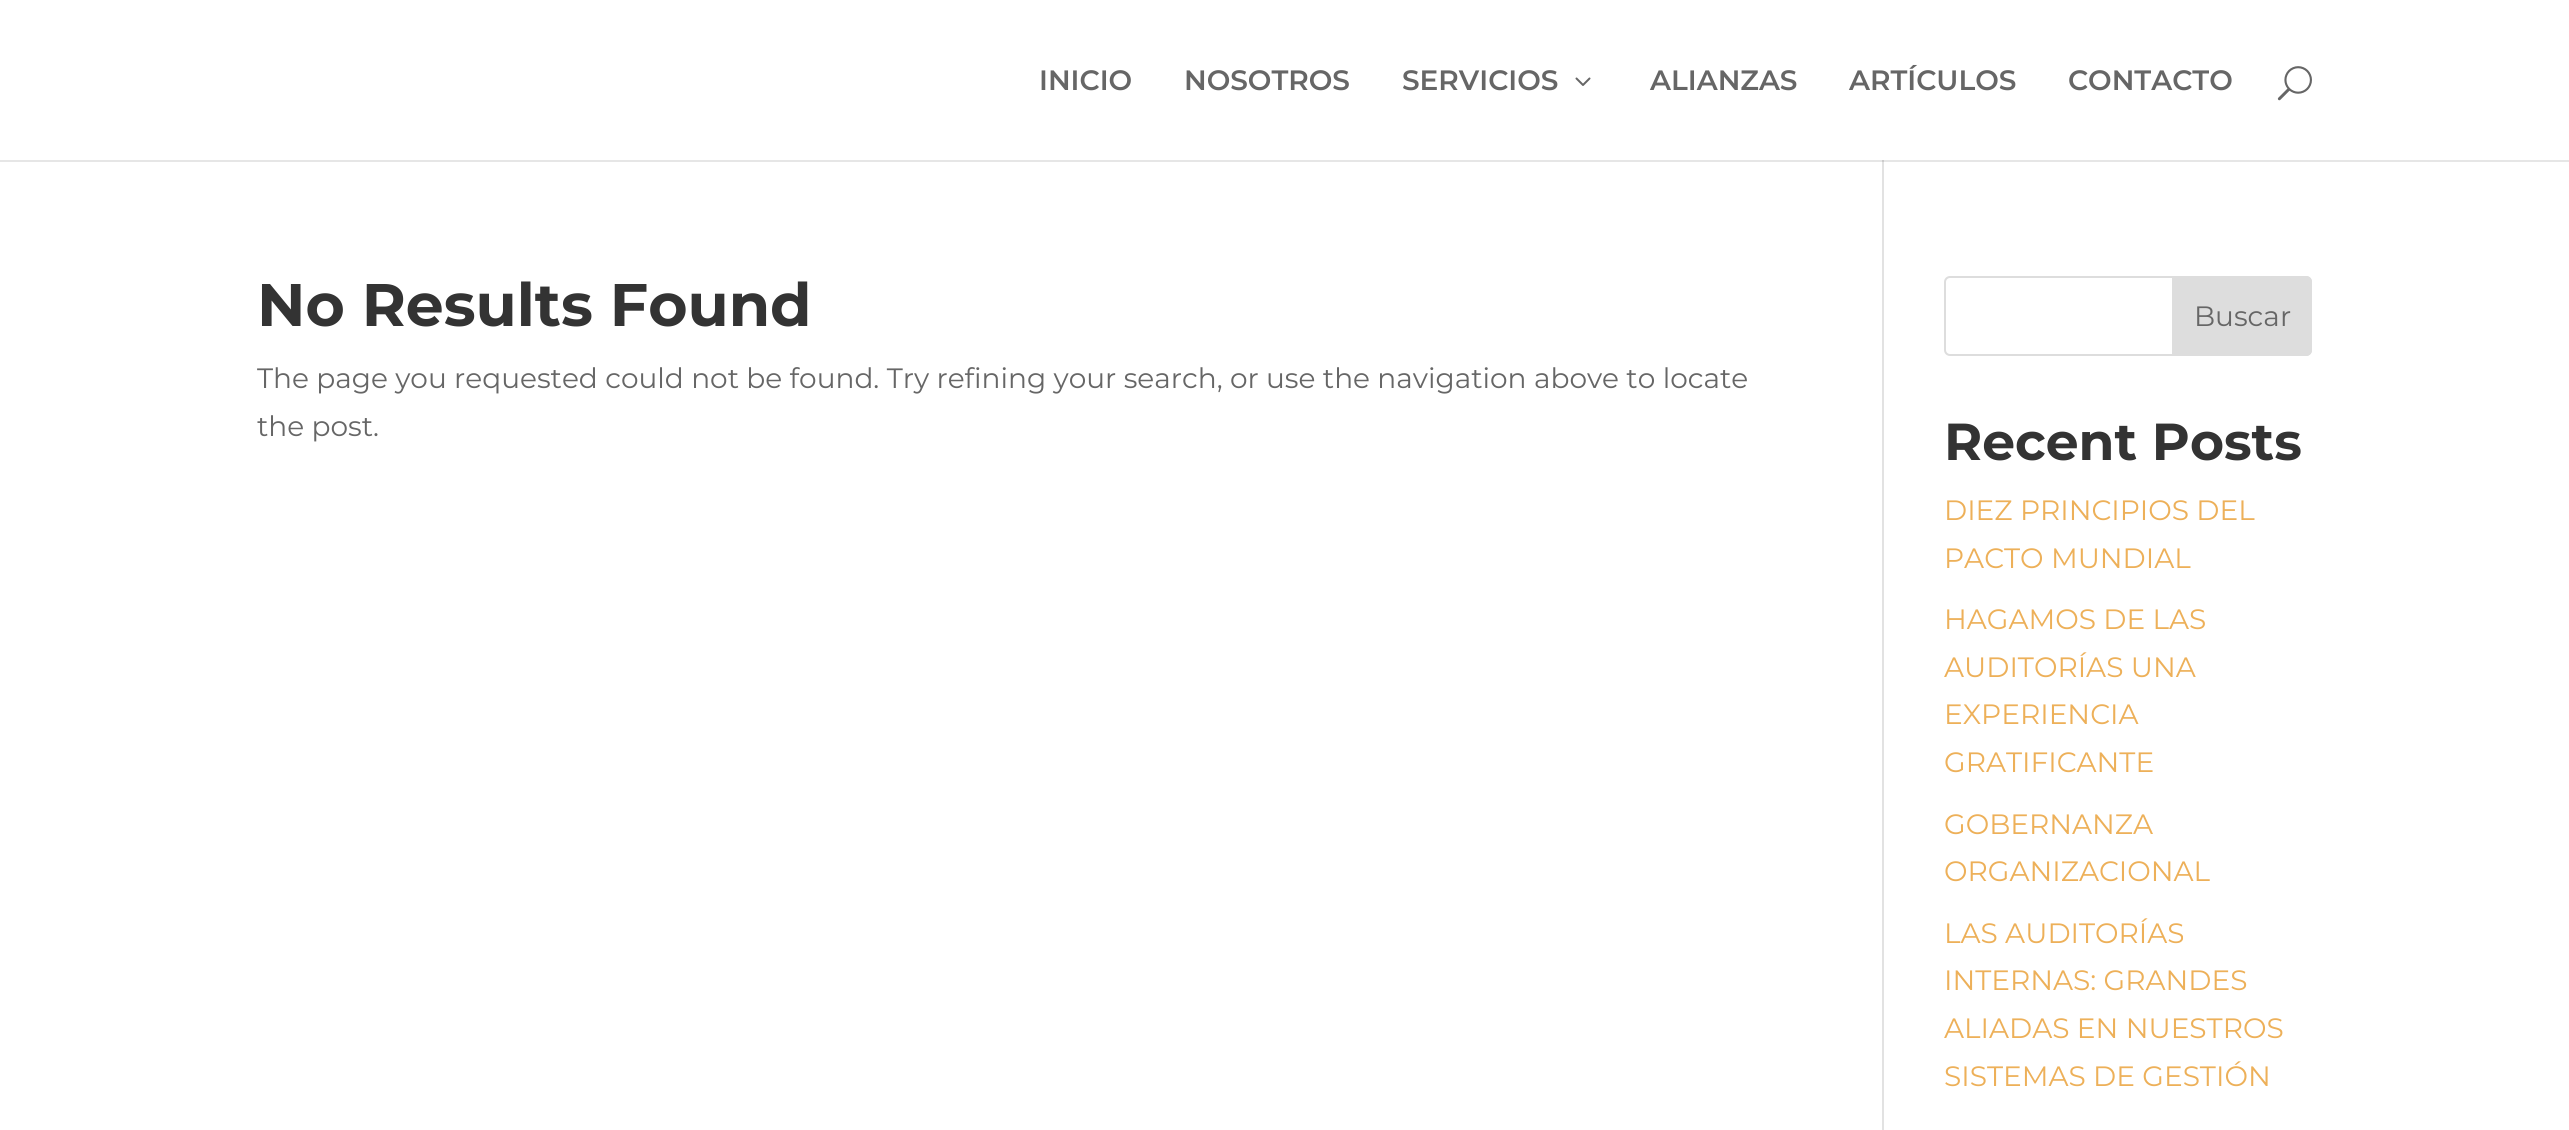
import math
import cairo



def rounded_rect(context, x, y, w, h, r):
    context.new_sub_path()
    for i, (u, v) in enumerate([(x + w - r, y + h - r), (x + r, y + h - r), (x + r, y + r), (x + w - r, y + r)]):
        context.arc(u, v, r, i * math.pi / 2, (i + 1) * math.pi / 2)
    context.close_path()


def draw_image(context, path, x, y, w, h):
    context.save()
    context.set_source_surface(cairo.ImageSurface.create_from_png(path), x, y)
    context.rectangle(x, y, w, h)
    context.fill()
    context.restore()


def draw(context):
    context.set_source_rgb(1, 1, 1)
    context.paint()
    draw_image(context, "images/1.png", 1575, 77, 16, 9)
    draw_image(context, "images/2.png", 2277, 66, 35, 35)
    context.set_source_rgb(230 / 255, 230 / 255, 230 / 255)
    context.rectangle(0, 160, 2569, 2)
    context.fill()
    context.set_source_rgb(226 / 255, 226 / 255, 226 / 255)
    context.rectangle(1882, 160, 2, 970)
    context.fill()
    context.set_source_rgb(203 / 255, 203 / 255, 203 / 255)
    context.rectangle(1882, 160, 2, 2)
    context.fill()
    rounded_rect(context, 1945, 277, 366, 78, 5)
    context.set_source_rgb(221 / 255, 221 / 255, 221 / 255)
    context.stroke()
    context.new_path()
    context.move_to(2173, 277)
    context.line_to(2306, 277)
    context.curve_to(2309, 277, 2311, 279, 2311, 282)
    context.line_to(2311, 350)
    context.curve_to(2311, 353, 2309, 355, 2306, 355)
    context.line_to(2173, 355)
    context.close_path()
    context.fill_preserve()
    context.stroke()
    context.select_font_face("Montserrat SemiBold")
    context.set_font_size(28)
    context.set_source_rgb(102 / 255, 102 / 255, 102 / 255)
    context.move_to(1039, 90)
    context.show_text("INICIO")
    context.move_to(1184, 90)
    context.show_text("NOSOTROS")
    context.move_to(1402, 90)
    context.show_text("SERVICIOS")
    context.move_to(1650, 90)
    context.show_text("ALIANZAS")
    context.move_to(1849, 90)
    context.show_text("ARTÍCULOS")
    context.move_to(2068, 90)
    context.show_text("CONTACTO")
    context.select_font_face("Montserrat", cairo.FontSlant.NORMAL, cairo.FontWeight.BOLD)
    context.set_font_size(60)
    context.set_source_rgb(51 / 255, 51 / 255, 51 / 255)
    context.move_to(257, 326)
    context.show_text("No Results Found")
    context.select_font_face("Montserrat")
    context.set_font_size(28)
    context.set_source_rgb(102 / 255, 102 / 255, 102 / 255)
    context.move_to(257, 388)
    context.show_text("The page you requested could not be found. Try refining your search, or use the navigation above to locate")
    context.move_to(257, 436)
    context.show_text("the post.")
    context.move_to(2194, 326)
    context.show_text("Buscar")
    context.select_font_face("Montserrat", cairo.FontSlant.NORMAL, cairo.FontWeight.BOLD)
    context.set_font_size(52)
    context.set_source_rgb(51 / 255, 51 / 255, 51 / 255)
    context.move_to(1944, 460)
    context.show_text("Recent Posts")
    context.select_font_face("Montserrat")
    context.set_font_size(28)
    context.set_source_rgb(237 / 255, 176 / 255, 89 / 255)
    context.move_to(1944, 520)
    context.show_text("DIEZ PRINCIPIOS DEL")
    context.move_to(1944, 568)
    context.show_text("PACTO MUNDIAL")
    context.move_to(1944, 629)
    context.show_text("HAGAMOS DE LAS")
    context.move_to(1944, 677)
    context.show_text("AUDITORÍAS UNA")
    context.move_to(1944, 724)
    context.show_text("EXPERIENCIA")
    context.move_to(1944, 772)
    context.show_text("GRATIFICANTE")
    context.move_to(1944, 834)
    context.show_text("GOBERNANZA")
    context.move_to(1944, 881)
    context.show_text("ORGANIZACIONAL")
    context.move_to(1944, 943)
    context.show_text("LAS AUDITORÍAS")
    context.move_to(1944, 990)
    context.show_text("INTERNAS: GRANDES")
    context.move_to(1944, 1038)
    context.show_text("ALIADAS EN NUESTROS")
    context.move_to(1944, 1086)
    context.show_text("SISTEMAS DE GESTIÓN")


surface = cairo.ImageSurface(cairo.Format.RGB24, 2569, 1130)
context = cairo.Context(surface)
options = cairo.FontOptions()
options.set_hint_metrics(cairo.HintMetrics.OFF)
options.set_hint_style(cairo.HintStyle.NONE)
context.set_font_options(options)
context.set_miter_limit(4)
draw(context)
surface.write_to_png("out.png")
